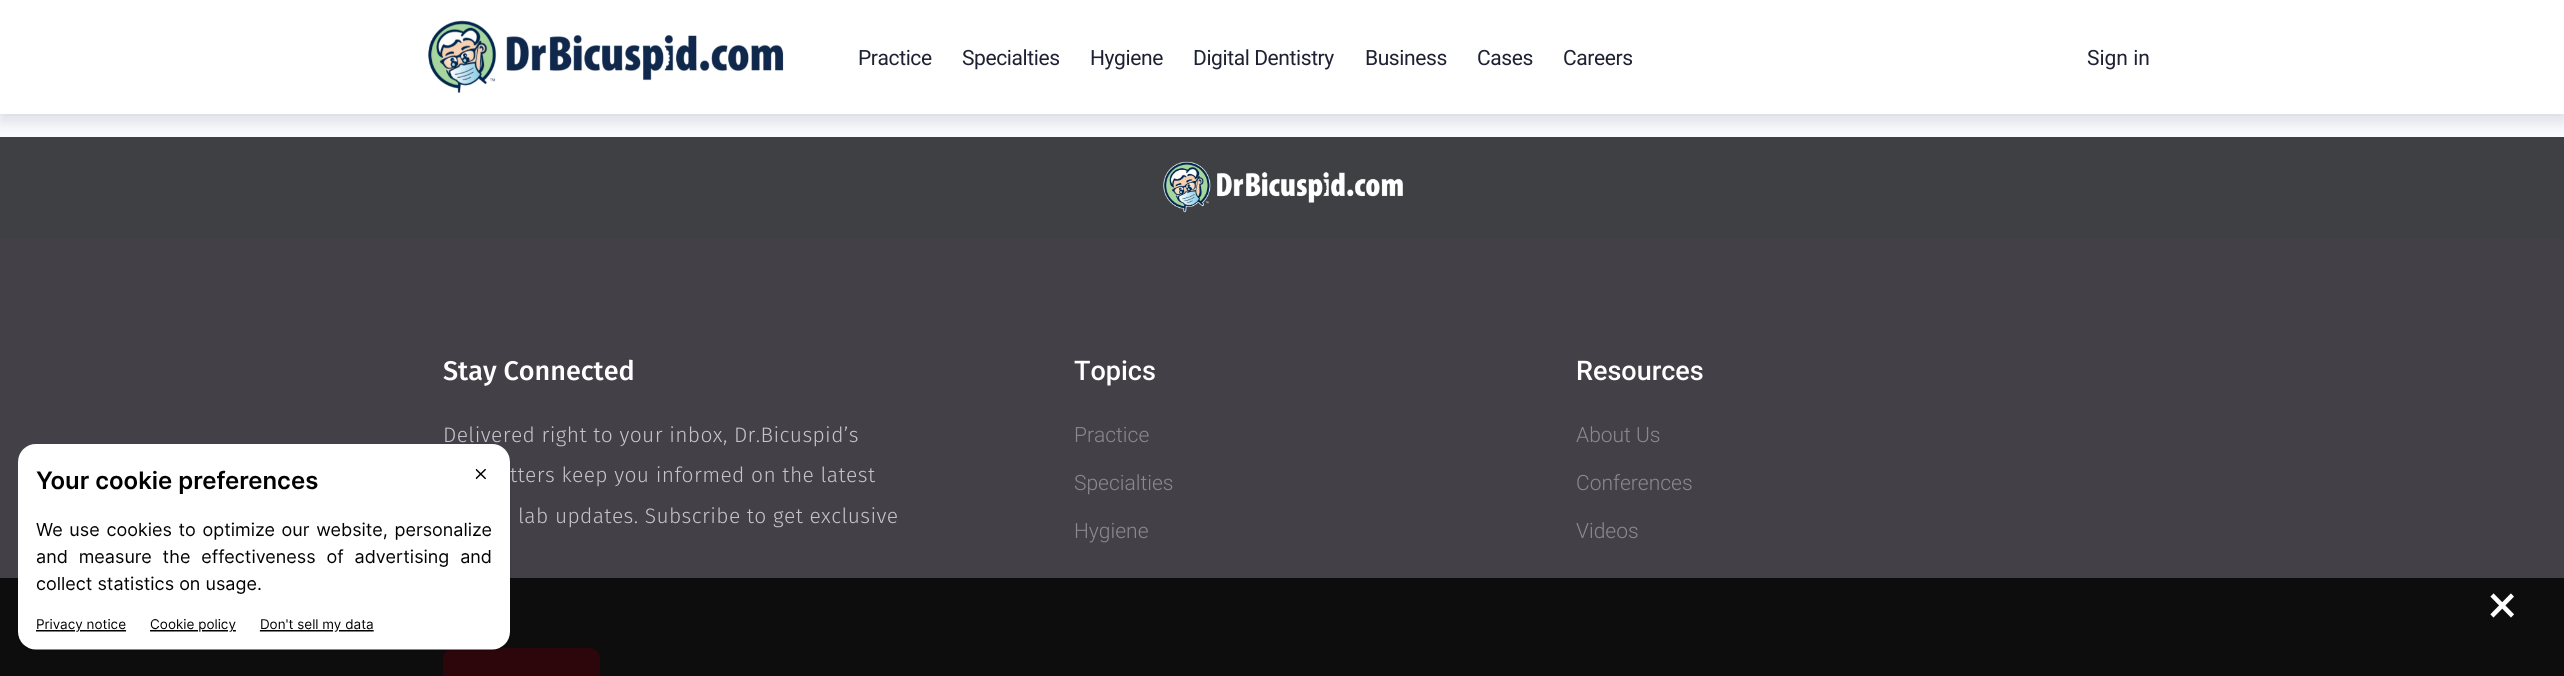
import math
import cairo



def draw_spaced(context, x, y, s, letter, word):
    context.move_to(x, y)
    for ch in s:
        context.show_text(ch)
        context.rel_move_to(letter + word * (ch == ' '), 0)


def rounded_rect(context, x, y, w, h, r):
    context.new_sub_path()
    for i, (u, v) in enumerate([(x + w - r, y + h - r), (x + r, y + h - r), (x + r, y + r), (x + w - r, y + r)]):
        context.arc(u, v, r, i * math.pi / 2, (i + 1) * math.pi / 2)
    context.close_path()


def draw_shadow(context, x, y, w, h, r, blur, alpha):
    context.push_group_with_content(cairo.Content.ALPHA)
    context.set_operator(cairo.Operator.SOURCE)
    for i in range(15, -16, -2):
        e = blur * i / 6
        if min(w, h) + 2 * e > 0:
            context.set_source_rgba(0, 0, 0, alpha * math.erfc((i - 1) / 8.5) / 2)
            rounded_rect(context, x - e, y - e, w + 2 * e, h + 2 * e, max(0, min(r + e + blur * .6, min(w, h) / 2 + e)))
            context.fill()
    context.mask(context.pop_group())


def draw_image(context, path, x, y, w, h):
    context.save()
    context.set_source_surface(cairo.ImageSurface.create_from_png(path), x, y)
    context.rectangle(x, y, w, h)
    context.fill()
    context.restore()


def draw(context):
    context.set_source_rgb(250 / 255, 251 / 255, 253 / 255)
    context.paint()
    context.set_source_rgb(63 / 255, 64 / 255, 68 / 255)
    context.rectangle(0, 137, 2564, 102)
    context.fill()
    context.set_source_rgb(65 / 255, 71 / 255, 108 / 255)
    draw_shadow(context, 0, 8, 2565, 114, 0, 7.5, 0.15)
    context.set_source_rgba(139 / 255, 141 / 255, 157 / 255, 0.05)
    context.rectangle(0, 114, 2564, 2)
    context.fill()
    context.set_source_rgb(1, 1, 1)
    context.rectangle(0, 0, 2564, 114)
    context.fill()
    draw_image(context, "images/2.png", 428, 20, 356, 73)
    draw_image(context, "images/3.png", 1163, 161, 240, 52)
    context.set_source_rgb(68 / 255, 64 / 255, 71 / 255)
    context.rectangle(0, 239, 2564, 437)
    context.fill()
    context.set_source_rgb(227 / 255, 28 / 255, 61 / 255)
    rounded_rect(context, 443, 648, 157, 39, 11)
    context.fill()
    context.set_source_rgba(0, 0, 0, 0.8)
    context.rectangle(0, 578, 2564, 98)
    context.fill()
    context.select_font_face("Roboto")
    context.set_font_size(21)
    context.set_source_rgb(30 / 255, 33 / 255, 50 / 255)
    draw_spaced(context, 858, 65, "Practice", -0.4, 0)
    draw_spaced(context, 962, 65, "Specialties", -0.4, 0)
    draw_spaced(context, 1090, 65, "Hygiene", -0.4, 0)
    draw_spaced(context, 1193, 65, "Digital Dentistry", -0.4, 0)
    draw_spaced(context, 1365, 65, "Business", -0.4, 0)
    draw_spaced(context, 1477, 65, "Cases", -0.4, 0)
    draw_spaced(context, 1563, 65, "Careers", -0.4, 0)
    context.move_to(2087, 65)
    context.show_text("Sign in")
    context.select_font_face("Fira Sans Medium")
    context.set_font_size(27)
    context.set_source_rgb(1, 1, 1)
    context.move_to(443, 380)
    context.show_text("Stay Connected")
    context.select_font_face("Fira Sans Light")
    context.set_font_size(21)
    context.set_source_rgb(196 / 255, 198 / 255, 203 / 255)
    draw_spaced(context, 443, 442, "Delivered right to your inbox, Dr.Bicuspid’s", 0.4, 0)
    draw_spaced(context, 510, 482, "tters keep you informed on the latest", 0.4, 0)
    draw_image(context, "images/1.png", 18, 444, 494, 208)
    draw_spaced(context, 518, 523, "lab updates. Subscribe to get exclusive", 0.4, 0)
    context.select_font_face("Roboto Medium")
    context.set_font_size(27)
    context.set_source_rgb(1, 1, 1)
    context.move_to(1074, 380)
    context.show_text("Topics")
    context.select_font_face("Roboto Light")
    context.set_font_size(21)
    context.set_source_rgb(139 / 255, 137 / 255, 141 / 255)
    context.move_to(1074, 442)
    context.show_text("Practice")
    context.move_to(1074, 490)
    context.show_text("Specialties")
    context.move_to(1074, 538)
    context.show_text("Hygiene")
    context.select_font_face("Roboto Medium")
    context.set_font_size(27)
    context.set_source_rgb(1, 1, 1)
    context.move_to(1576, 380)
    context.show_text("Resources")
    context.select_font_face("Roboto Light")
    context.set_font_size(21)
    context.set_source_rgb(139 / 255, 137 / 255, 141 / 255)
    context.move_to(1576, 442)
    context.show_text("About Us")
    context.move_to(1576, 490)
    context.show_text("Conferences")
    context.move_to(1576, 538)
    context.show_text("Videos")
    context.select_font_face("Roboto")
    context.set_font_size(54)
    context.set_source_rgb(1, 1, 1)
    context.move_to(2488, 623)
    context.show_text("×")


surface = cairo.ImageSurface(cairo.Format.RGB24, 2564, 676)
context = cairo.Context(surface)
options = cairo.FontOptions()
options.set_hint_metrics(cairo.HintMetrics.OFF)
options.set_hint_style(cairo.HintStyle.NONE)
context.set_font_options(options)
context.set_miter_limit(4)
draw(context)
surface.write_to_png("out.png")
